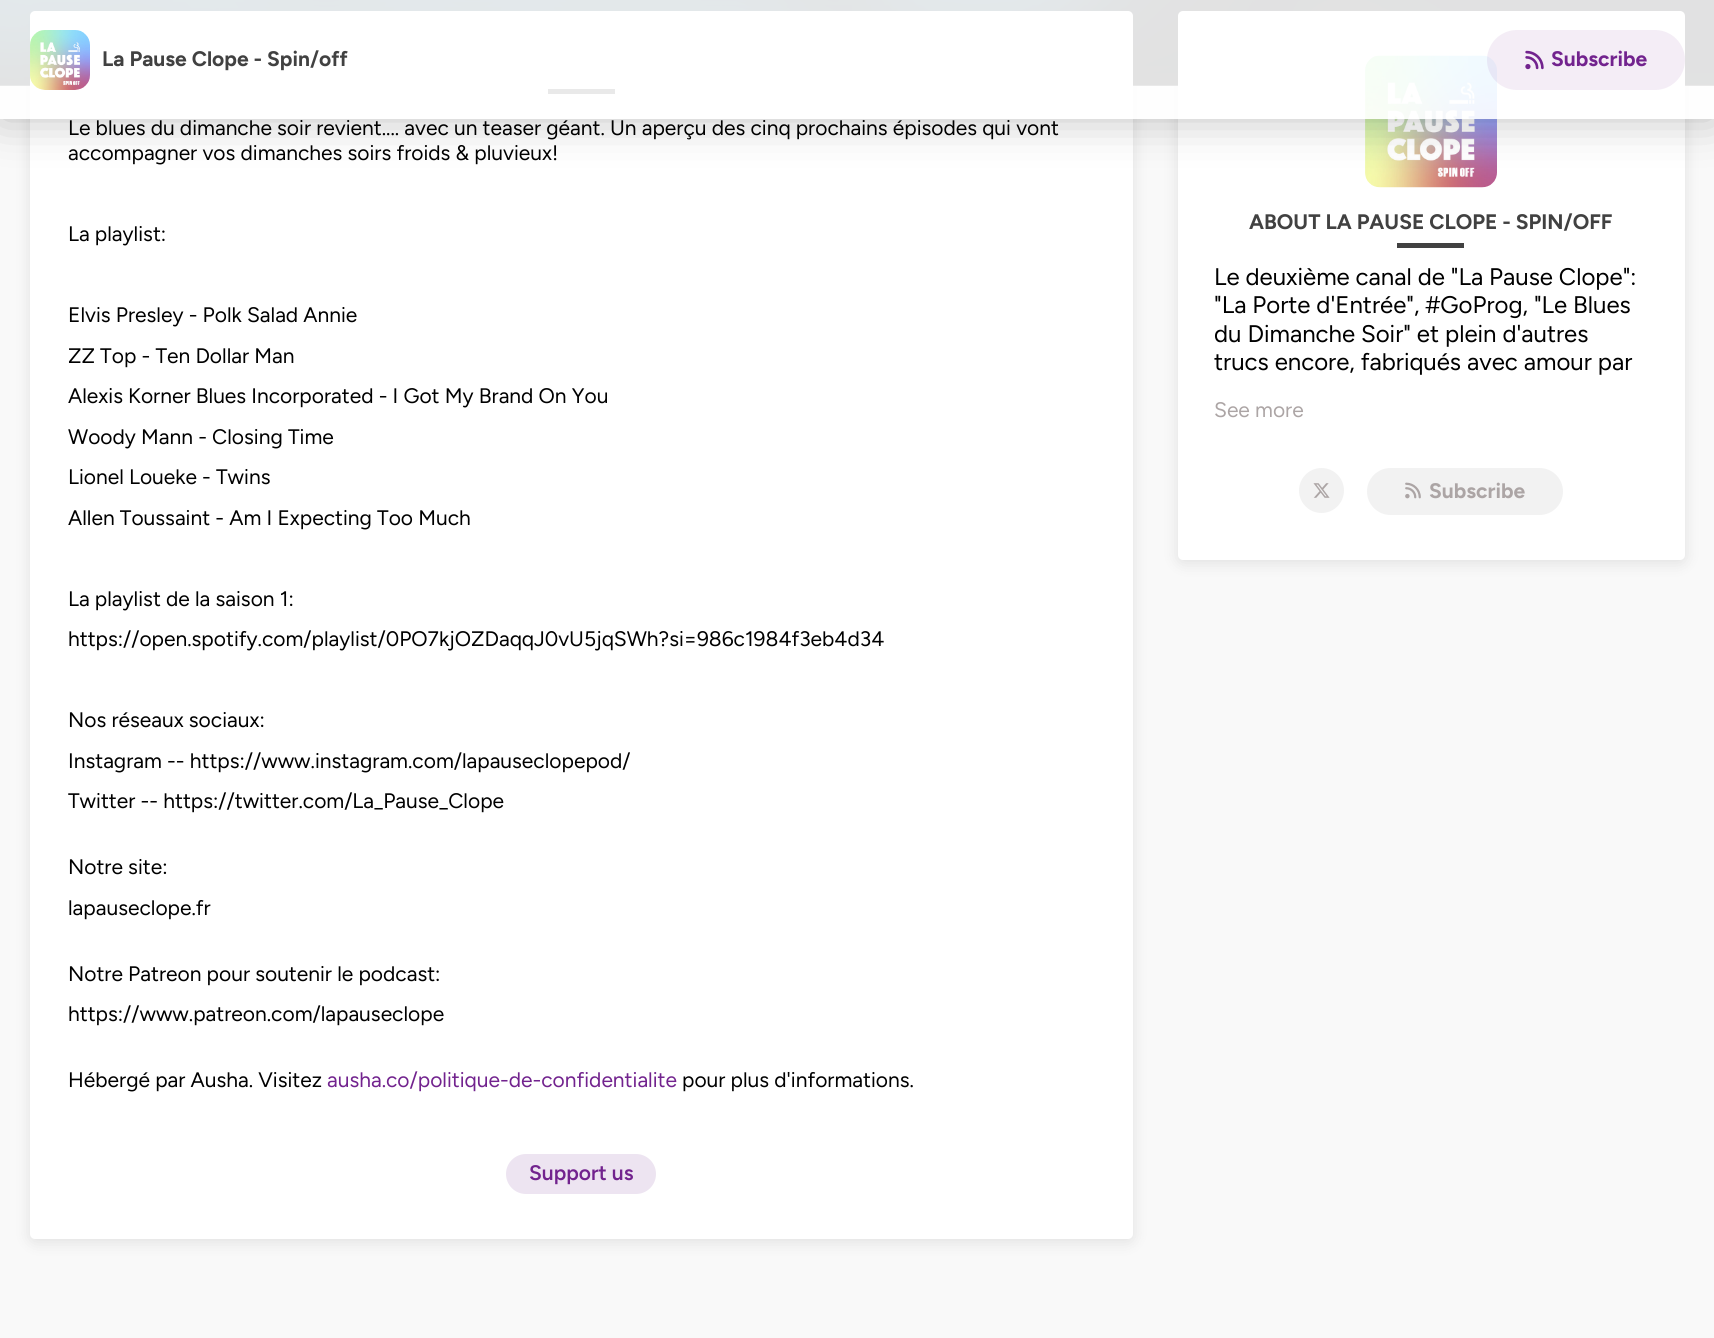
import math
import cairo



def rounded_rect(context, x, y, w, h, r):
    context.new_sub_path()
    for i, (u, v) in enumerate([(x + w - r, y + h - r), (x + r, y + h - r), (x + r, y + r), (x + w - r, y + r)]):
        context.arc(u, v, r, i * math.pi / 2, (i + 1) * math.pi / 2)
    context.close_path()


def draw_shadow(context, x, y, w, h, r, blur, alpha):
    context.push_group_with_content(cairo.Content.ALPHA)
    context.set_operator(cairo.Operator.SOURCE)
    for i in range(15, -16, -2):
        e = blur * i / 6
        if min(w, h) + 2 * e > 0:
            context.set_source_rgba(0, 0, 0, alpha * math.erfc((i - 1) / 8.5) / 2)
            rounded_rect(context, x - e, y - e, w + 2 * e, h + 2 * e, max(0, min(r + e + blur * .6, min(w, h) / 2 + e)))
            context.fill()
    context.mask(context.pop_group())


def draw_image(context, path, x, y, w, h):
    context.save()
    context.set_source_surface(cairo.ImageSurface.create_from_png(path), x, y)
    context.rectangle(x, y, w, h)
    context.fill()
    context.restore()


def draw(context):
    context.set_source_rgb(1, 1, 1)
    context.paint()
    draw_image(context, "images/1.png", 0, 0, 1714, 86)
    context.set_source_rgb(0, 0, 0)
    draw_shadow(context, -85, -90, 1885, 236, 0, 30, 0.5)
    context.set_source_rgb(249 / 255, 249 / 255, 249 / 255)
    context.rectangle(0, 86, 1714, 1252)
    context.fill()
    context.set_source_rgb(0, 0, 0)
    draw_shadow(context, 30, 14, 1103, 1228, 5, 7.5, 0.1)
    context.set_source_rgb(1, 1, 1)
    rounded_rect(context, 30, 11, 1103, 1228, 5)
    context.fill()
    context.set_source_rgb(65 / 255, 65 / 255, 65 / 255)
    context.rectangle(548, 89, 67, 5)
    context.fill()
    context.set_source_rgb(0, 0, 0)
    draw_shadow(context, 1178, 14, 507, 549, 5, 7.5, 0.1)
    context.set_source_rgb(1, 1, 1)
    rounded_rect(context, 1178, 11, 507, 549, 5)
    context.fill()
    draw_image(context, "images/4.png", 1365, 55, 132, 133)
    context.save()
    context.set_fill_rule(cairo.FillRule.EVEN_ODD)
    context.new_path()
    context.move_to(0, 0)
    context.line_to(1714, 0)
    context.line_to(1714, 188)
    context.line_to(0, 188)
    context.close_path()
    context.move_to(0, 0)
    context.line_to(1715, 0)
    context.line_to(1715, 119)
    context.line_to(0, 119)
    context.close_path()
    context.clip()
    context.set_source_rgb(0, 0, 0)
    draw_shadow(context, 0, 0, 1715, 119, 0, 22.5, 0.25)
    context.restore()
    context.set_source_rgba(1, 1, 1, 0.88)
    context.rectangle(0, 0, 1714, 119)
    context.fill()
    draw_image(context, "images/2.png", 30, 30, 60, 60)
    context.set_source_rgba(114 / 255, 35 / 255, 142 / 255, 0.08)
    rounded_rect(context, 1487, 30, 198, 60, 30)
    context.fill()
    draw_image(context, "images/3.png", 1525, 50, 19, 20)
    context.set_source_rgb(237 / 255, 228 / 255, 241 / 255)
    rounded_rect(context, 506, 1154, 150, 40, 20)
    context.fill()
    context.set_source_rgb(65 / 255, 65 / 255, 65 / 255)
    context.rectangle(1397, 243, 67, 5)
    context.fill()
    context.set_source_rgb(242 / 255, 242 / 255, 242 / 255)
    context.arc(1321.5, 490.5, 22.5, 0, 2 * math.pi)
    context.fill()
    draw_image(context, "images/5.png", 1313, 483, 17, 15)
    rounded_rect(context, 1367, 468, 196, 47, 23.5)
    context.fill()
    draw_image(context, "images/6.png", 1405, 482, 16, 17)
    context.select_font_face("Figtree", cairo.FontSlant.NORMAL, cairo.FontWeight.BOLD)
    context.set_font_size(21)
    context.set_source_rgb(65 / 255, 65 / 255, 65 / 255)
    context.move_to(102, 66)
    context.show_text("La Pause Clope - Spin/off")
    context.set_source_rgb(114 / 255, 35 / 255, 142 / 255)
    context.move_to(1551, 66)
    context.show_text("Subscribe")
    context.select_font_face("Figtree")
    context.set_source_rgb(0, 0, 0)
    context.move_to(68, 135)
    context.show_text("Le blues du dimanche soir revient.... avec un teaser géant. Un aperçu des cinq prochains épisodes qui vont")
    context.move_to(68, 160)
    context.show_text("accompagner vos dimanches soirs froids & pluvieux!")
    context.move_to(68, 241)
    context.show_text("La playlist:")
    context.move_to(68, 322)
    context.show_text("Elvis Presley - Polk Salad Annie")
    context.move_to(68, 363)
    context.show_text("ZZ Top - Ten Dollar Man")
    context.move_to(68, 403)
    context.show_text("Alexis Korner Blues Incorporated - I Got My Brand On You")
    context.move_to(68, 444)
    context.show_text("Woody Mann - Closing Time")
    context.move_to(68, 484)
    context.show_text("Lionel Loueke - Twins")
    context.move_to(68, 525)
    context.show_text("Allen Toussaint - Am I Expecting Too Much")
    context.move_to(68, 606)
    context.show_text("La playlist de la saison 1:")
    context.move_to(68, 646)
    context.show_text("https://open.spotify.com/playlist/0PO7kjOZDaqqJ0vU5jqSWh?si=986c1984f3eb4d34")
    context.move_to(68, 727)
    context.show_text("Nos réseaux sociaux:")
    context.move_to(68, 768)
    context.show_text("Instagram -- https://www.instagram.com/lapauseclopepod/")
    context.move_to(68, 808)
    context.show_text("Twitter -- https://twitter.com/La_Pause_Clope")
    context.move_to(68, 874)
    context.show_text("Notre site:")
    context.move_to(68, 915)
    context.show_text("lapauseclope.fr")
    context.move_to(68, 981)
    context.show_text("Notre Patreon pour soutenir le podcast:")
    context.move_to(68, 1021)
    context.show_text("https://www.patreon.com/lapauseclope")
    context.move_to(68, 1087)
    context.show_text("Hébergé par Ausha. Visitez")
    context.set_source_rgb(114 / 255, 35 / 255, 142 / 255)
    context.move_to(327, 1087)
    context.show_text("ausha.co/politique-de-confidentialite")
    context.set_source_rgb(0, 0, 0)
    context.move_to(682, 1087)
    context.show_text("pour plus d'informations.")
    context.select_font_face("Figtree SemiBold")
    context.set_source_rgb(114 / 255, 35 / 255, 142 / 255)
    context.move_to(529, 1180)
    context.show_text("Support us")
    context.select_font_face("Figtree", cairo.FontSlant.NORMAL, cairo.FontWeight.BOLD)
    context.set_source_rgb(65 / 255, 65 / 255, 65 / 255)
    context.move_to(1249, 229)
    context.show_text("ABOUT LA PAUSE CLOPE - SPIN/OFF")
    context.select_font_face("Figtree")
    context.set_font_size(24)
    context.set_source_rgb(0, 0, 0)
    context.move_to(1214, 285)
    context.show_text("Le deuxième canal de \"La Pause Clope\":")
    context.move_to(1214, 313)
    context.show_text("\"La Porte d'Entrée\", #GoProg, \"Le Blues")
    context.move_to(1214, 342)
    context.show_text("du Dimanche Soir\" et plein d'autres")
    context.move_to(1214, 370)
    context.show_text("trucs encore, fabriqués avec amour par")
    context.set_font_size(21)
    context.set_source_rgb(172 / 255, 165 / 255, 165 / 255)
    context.move_to(1214, 417)
    context.show_text("See more")
    context.select_font_face("Figtree", cairo.FontSlant.NORMAL, cairo.FontWeight.BOLD)
    context.move_to(1429, 498)
    context.show_text("Subscribe")


surface = cairo.ImageSurface(cairo.Format.RGB24, 1714, 1338)
context = cairo.Context(surface)
options = cairo.FontOptions()
options.set_hint_metrics(cairo.HintMetrics.OFF)
options.set_hint_style(cairo.HintStyle.NONE)
context.set_font_options(options)
context.set_miter_limit(4)
draw(context)
surface.write_to_png("out.png")
